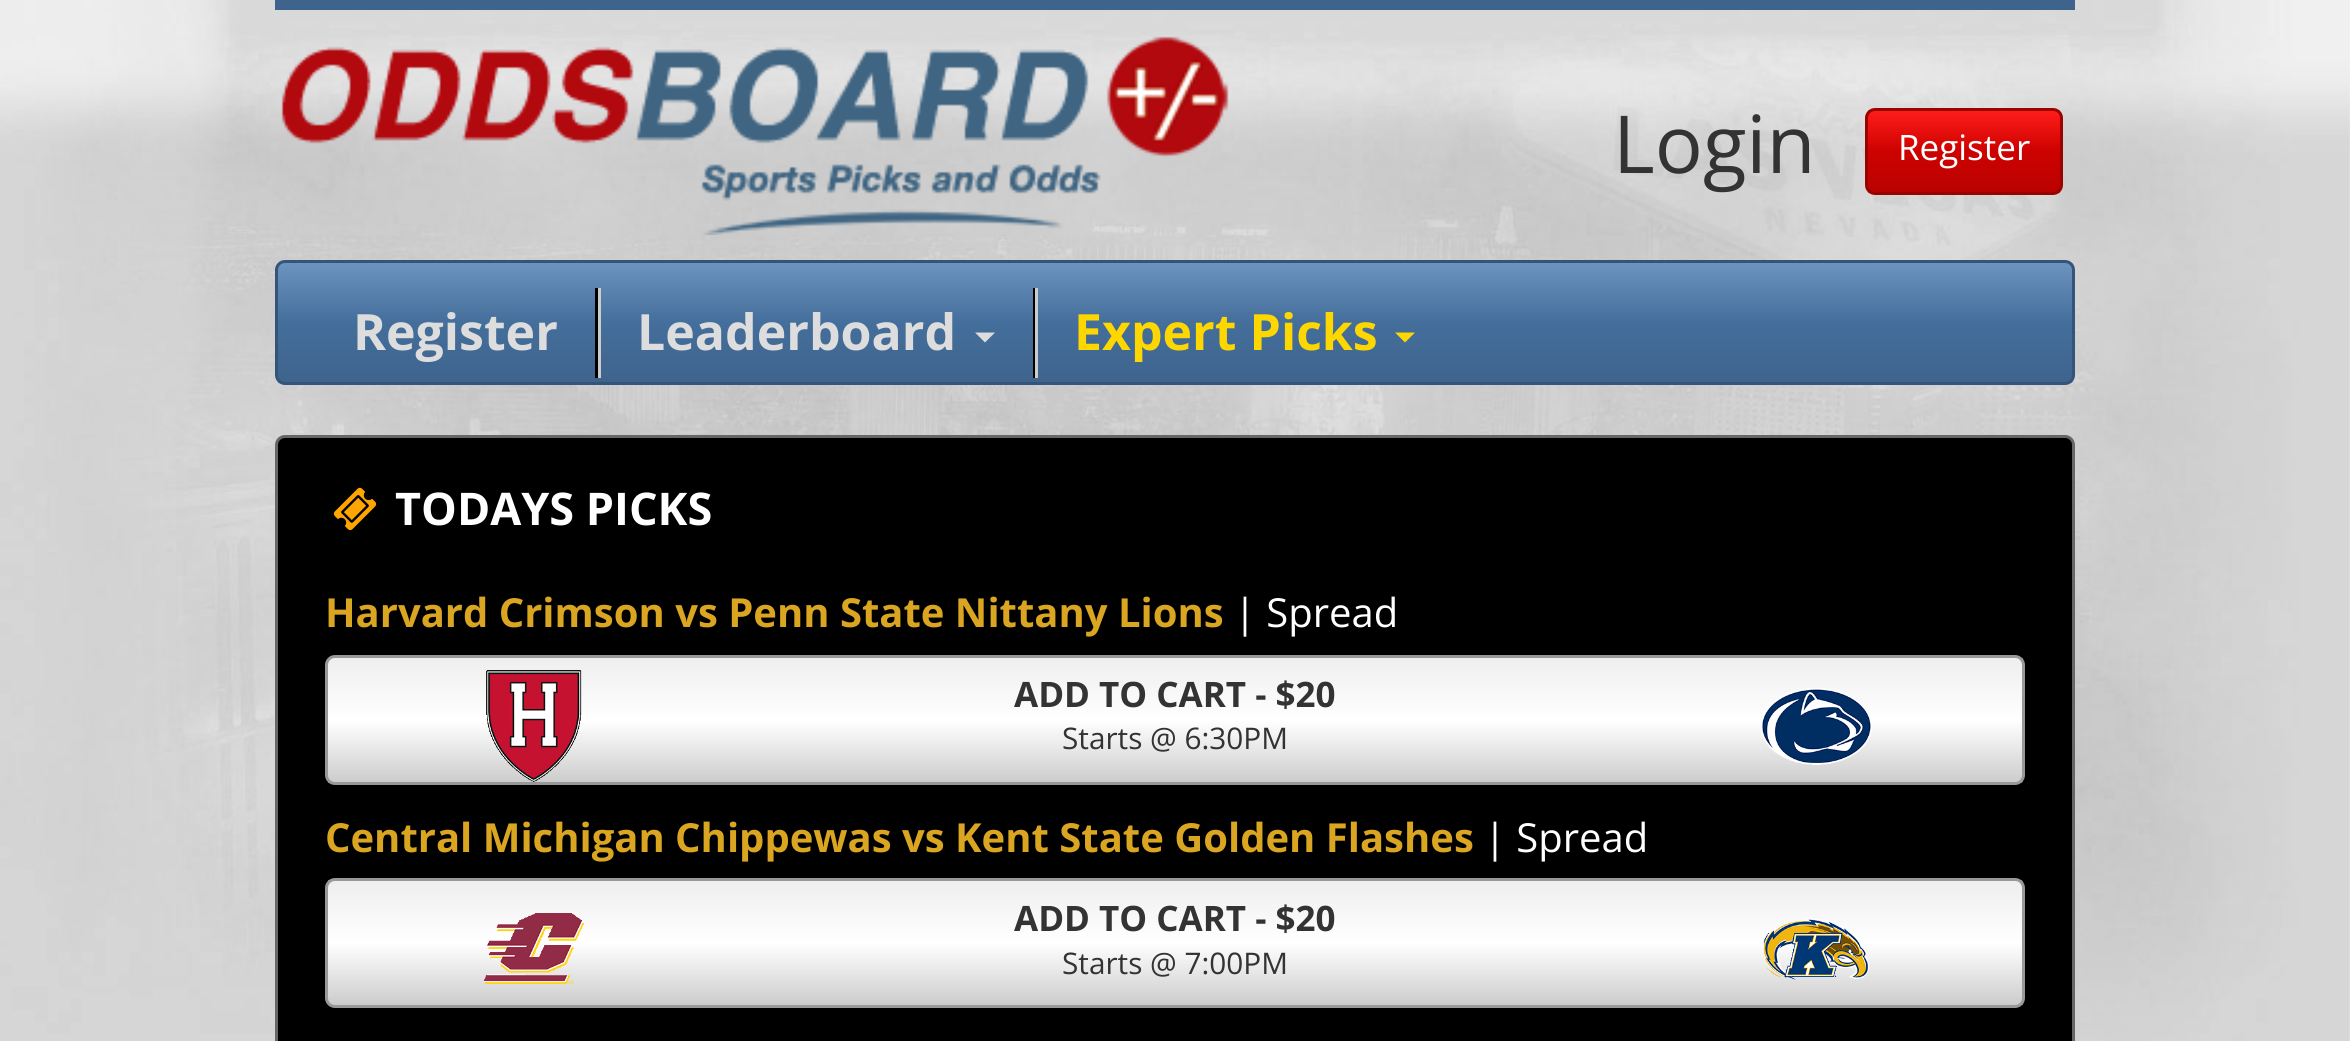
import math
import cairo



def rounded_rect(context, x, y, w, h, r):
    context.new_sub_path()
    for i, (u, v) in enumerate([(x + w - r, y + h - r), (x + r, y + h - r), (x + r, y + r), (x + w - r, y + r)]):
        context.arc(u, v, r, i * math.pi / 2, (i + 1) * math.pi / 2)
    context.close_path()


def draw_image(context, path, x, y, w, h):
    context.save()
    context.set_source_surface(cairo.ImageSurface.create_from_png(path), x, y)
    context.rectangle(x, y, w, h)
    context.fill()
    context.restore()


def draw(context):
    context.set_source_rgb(1, 1, 1)
    context.paint()
    draw_image(context, "images/1.png", 0, 0, 2350, 1041)
    context.set_source_rgb(62 / 255, 100 / 255, 141 / 255)
    context.rectangle(275, 0, 1800, 10)
    context.fill()
    draw_image(context, "images/2.png", 281, 36, 948, 199)
    context.save()
    rounded_rect(context, 1865, 108, 198, 87, 10)
    context.clip()
    gradient = cairo.LinearGradient(1964, 110, 1964, 193)
    gradient.add_color_stop_rgba(0, 1, 29 / 255, 27 / 255, 1)
    gradient.add_color_stop_rgba(0.5, 205 / 255, 2 / 255, 0, 1)
    gradient.add_color_stop_rgba(1, 185 / 255, 2 / 255, 0, 1)
    context.set_source(gradient)
    context.rectangle(1868, 110, 192, 83)
    context.fill()
    context.restore()
    rounded_rect(context, 1866.5, 109.5, 195, 84, 8.5)
    context.set_source_rgb(154 / 255, 2 / 255, 0)
    context.set_line_width(3)
    context.stroke()
    context.save()
    rounded_rect(context, 275, 260, 1800, 125, 10)
    context.clip()
    gradient = cairo.LinearGradient(1175, 262, 1175, 383)
    gradient.add_color_stop_rgba(0, 109 / 255, 148 / 255, 191 / 255, 1)
    gradient.add_color_stop_rgba(0.5, 68 / 255, 110 / 255, 155 / 255, 1)
    gradient.add_color_stop_rgba(1, 62 / 255, 100 / 255, 141 / 255, 1)
    context.set_source(gradient)
    context.rectangle(278, 263, 1795, 120)
    context.fill()
    context.restore()
    rounded_rect(context, 276.5, 261.5, 1797, 122, 8.5)
    context.set_source_rgb(52 / 255, 85 / 255, 120 / 255)
    context.stroke()
    context.set_source_rgb(0, 0, 0)
    context.rectangle(595, 288, 3, 90)
    context.fill()
    context.rectangle(1033, 288, 2, 90)
    context.fill()
    context.set_source_rgb(204 / 255, 204 / 255, 204 / 255)
    context.rectangle(598, 288, 3, 90)
    context.fill()
    context.set_source_rgb(221 / 255, 221 / 255, 221 / 255)
    context.new_path()
    context.move_to(975, 332.5)
    context.line_to(995, 332.5)
    context.line_to(985, 342.5)
    context.close_path()
    context.fill()
    context.set_source_rgb(204 / 255, 204 / 255, 204 / 255)
    context.rectangle(1035, 288, 3, 90)
    context.fill()
    context.set_source_rgb(1, 215 / 255, 0)
    context.new_path()
    context.move_to(1395, 332.5)
    context.line_to(1415, 332.5)
    context.line_to(1405, 342.5)
    context.close_path()
    context.fill()
    context.set_source_rgb(0, 0, 0)
    rounded_rect(context, 276.5, 436.5, 1797, 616, 8.5)
    context.fill_preserve()
    context.set_source_rgb(102 / 255, 102 / 255, 102 / 255)
    context.stroke()
    draw_image(context, "images/3.png", 333, 487, 44, 44)
    context.save()
    rounded_rect(context, 325, 655, 1700, 130, 10)
    context.clip()
    gradient = cairo.LinearGradient(1175, 657, 1175, 783)
    gradient.add_color_stop_rgba(0, 238 / 255, 238 / 255, 238 / 255, 1)
    gradient.add_color_stop_rgba(0.5, 1, 1, 1, 1)
    gradient.add_color_stop_rgba(1, 204 / 255, 204 / 255, 204 / 255, 1)
    context.set_source(gradient)
    context.rectangle(328, 658, 1695, 125)
    context.fill()
    context.restore()
    rounded_rect(context, 326.5, 656.5, 1697, 127, 8.5)
    context.set_source_rgb(153 / 255, 153 / 255, 153 / 255)
    context.stroke()
    draw_image(context, "images/4.png", 486, 670, 96, 112)
    draw_image(context, "images/5.png", 1761, 687, 111, 78)
    context.save()
    rounded_rect(context, 325, 878, 1700, 130, 10)
    context.clip()
    gradient = cairo.LinearGradient(1175, 880, 1175, 1005)
    gradient.add_color_stop_rgba(0, 238 / 255, 238 / 255, 238 / 255, 1)
    gradient.add_color_stop_rgba(0.5, 1, 1, 1, 1)
    gradient.add_color_stop_rgba(1, 204 / 255, 204 / 255, 204 / 255, 1)
    context.set_source(gradient)
    context.rectangle(328, 880, 1695, 125)
    context.fill()
    context.restore()
    rounded_rect(context, 326.5, 879.5, 1697, 127, 8.5)
    context.stroke()
    draw_image(context, "images/6.png", 483, 913, 101, 72)
    draw_image(context, "images/7.png", 1763, 918, 107, 62)
    context.select_font_face("Open Sans")
    context.set_font_size(80)
    context.set_source_rgb(51 / 255, 51 / 255, 51 / 255)
    context.move_to(1613, 173)
    context.show_text("Login")
    context.set_font_size(35)
    context.set_source_rgb(1, 1, 1)
    context.move_to(1898, 160)
    context.show_text("Register")
    context.select_font_face("Open Sans", cairo.FontSlant.NORMAL, cairo.FontWeight.BOLD)
    context.set_font_size(50)
    context.set_source_rgb(221 / 255, 221 / 255, 221 / 255)
    context.move_to(353, 350)
    context.show_text("Register")
    context.move_to(637, 350)
    context.show_text("Leaderboard")
    context.set_source_rgb(1, 215 / 255, 0)
    context.move_to(1074, 350)
    context.show_text("Expert Picks")
    context.set_font_size(45)
    context.set_source_rgb(1, 1, 1)
    context.move_to(395, 525)
    context.show_text("TODAYS PICKS")
    context.set_font_size(40)
    context.set_source_rgb(218 / 255, 165 / 255, 32 / 255)
    context.move_to(325, 627)
    context.show_text("Harvard Crimson vs Penn State Nittany Lions")
    context.select_font_face("Open Sans")
    context.set_source_rgb(1, 1, 1)
    context.move_to(1234, 627)
    context.show_text("| Spread")
    context.select_font_face("Open Sans", cairo.FontSlant.NORMAL, cairo.FontWeight.BOLD)
    context.set_font_size(35)
    context.set_source_rgb(51 / 255, 51 / 255, 51 / 255)
    context.move_to(1014, 707)
    context.show_text("ADD TO CART - $20")
    context.select_font_face("Open Sans")
    context.set_font_size(29.75)
    context.move_to(1062, 749)
    context.show_text("Starts @ 6:30PM")
    context.select_font_face("Open Sans", cairo.FontSlant.NORMAL, cairo.FontWeight.BOLD)
    context.set_font_size(40)
    context.set_source_rgb(218 / 255, 165 / 255, 32 / 255)
    context.move_to(325, 852)
    context.show_text("Central Michigan Chippewas vs Kent State Golden Flashes")
    context.select_font_face("Open Sans")
    context.set_source_rgb(1, 1, 1)
    context.move_to(1484, 852)
    context.show_text("| Spread")
    context.select_font_face("Open Sans", cairo.FontSlant.NORMAL, cairo.FontWeight.BOLD)
    context.set_font_size(35)
    context.set_source_rgb(51 / 255, 51 / 255, 51 / 255)
    context.move_to(1014, 931)
    context.show_text("ADD TO CART - $20")
    context.select_font_face("Open Sans")
    context.set_font_size(29.75)
    context.move_to(1062, 974)
    context.show_text("Starts @ 7:00PM")


surface = cairo.ImageSurface(cairo.Format.RGB24, 2350, 1041)
context = cairo.Context(surface)
options = cairo.FontOptions()
options.set_hint_metrics(cairo.HintMetrics.OFF)
options.set_hint_style(cairo.HintStyle.NONE)
context.set_font_options(options)
context.set_miter_limit(4)
draw(context)
surface.write_to_png("out.png")
